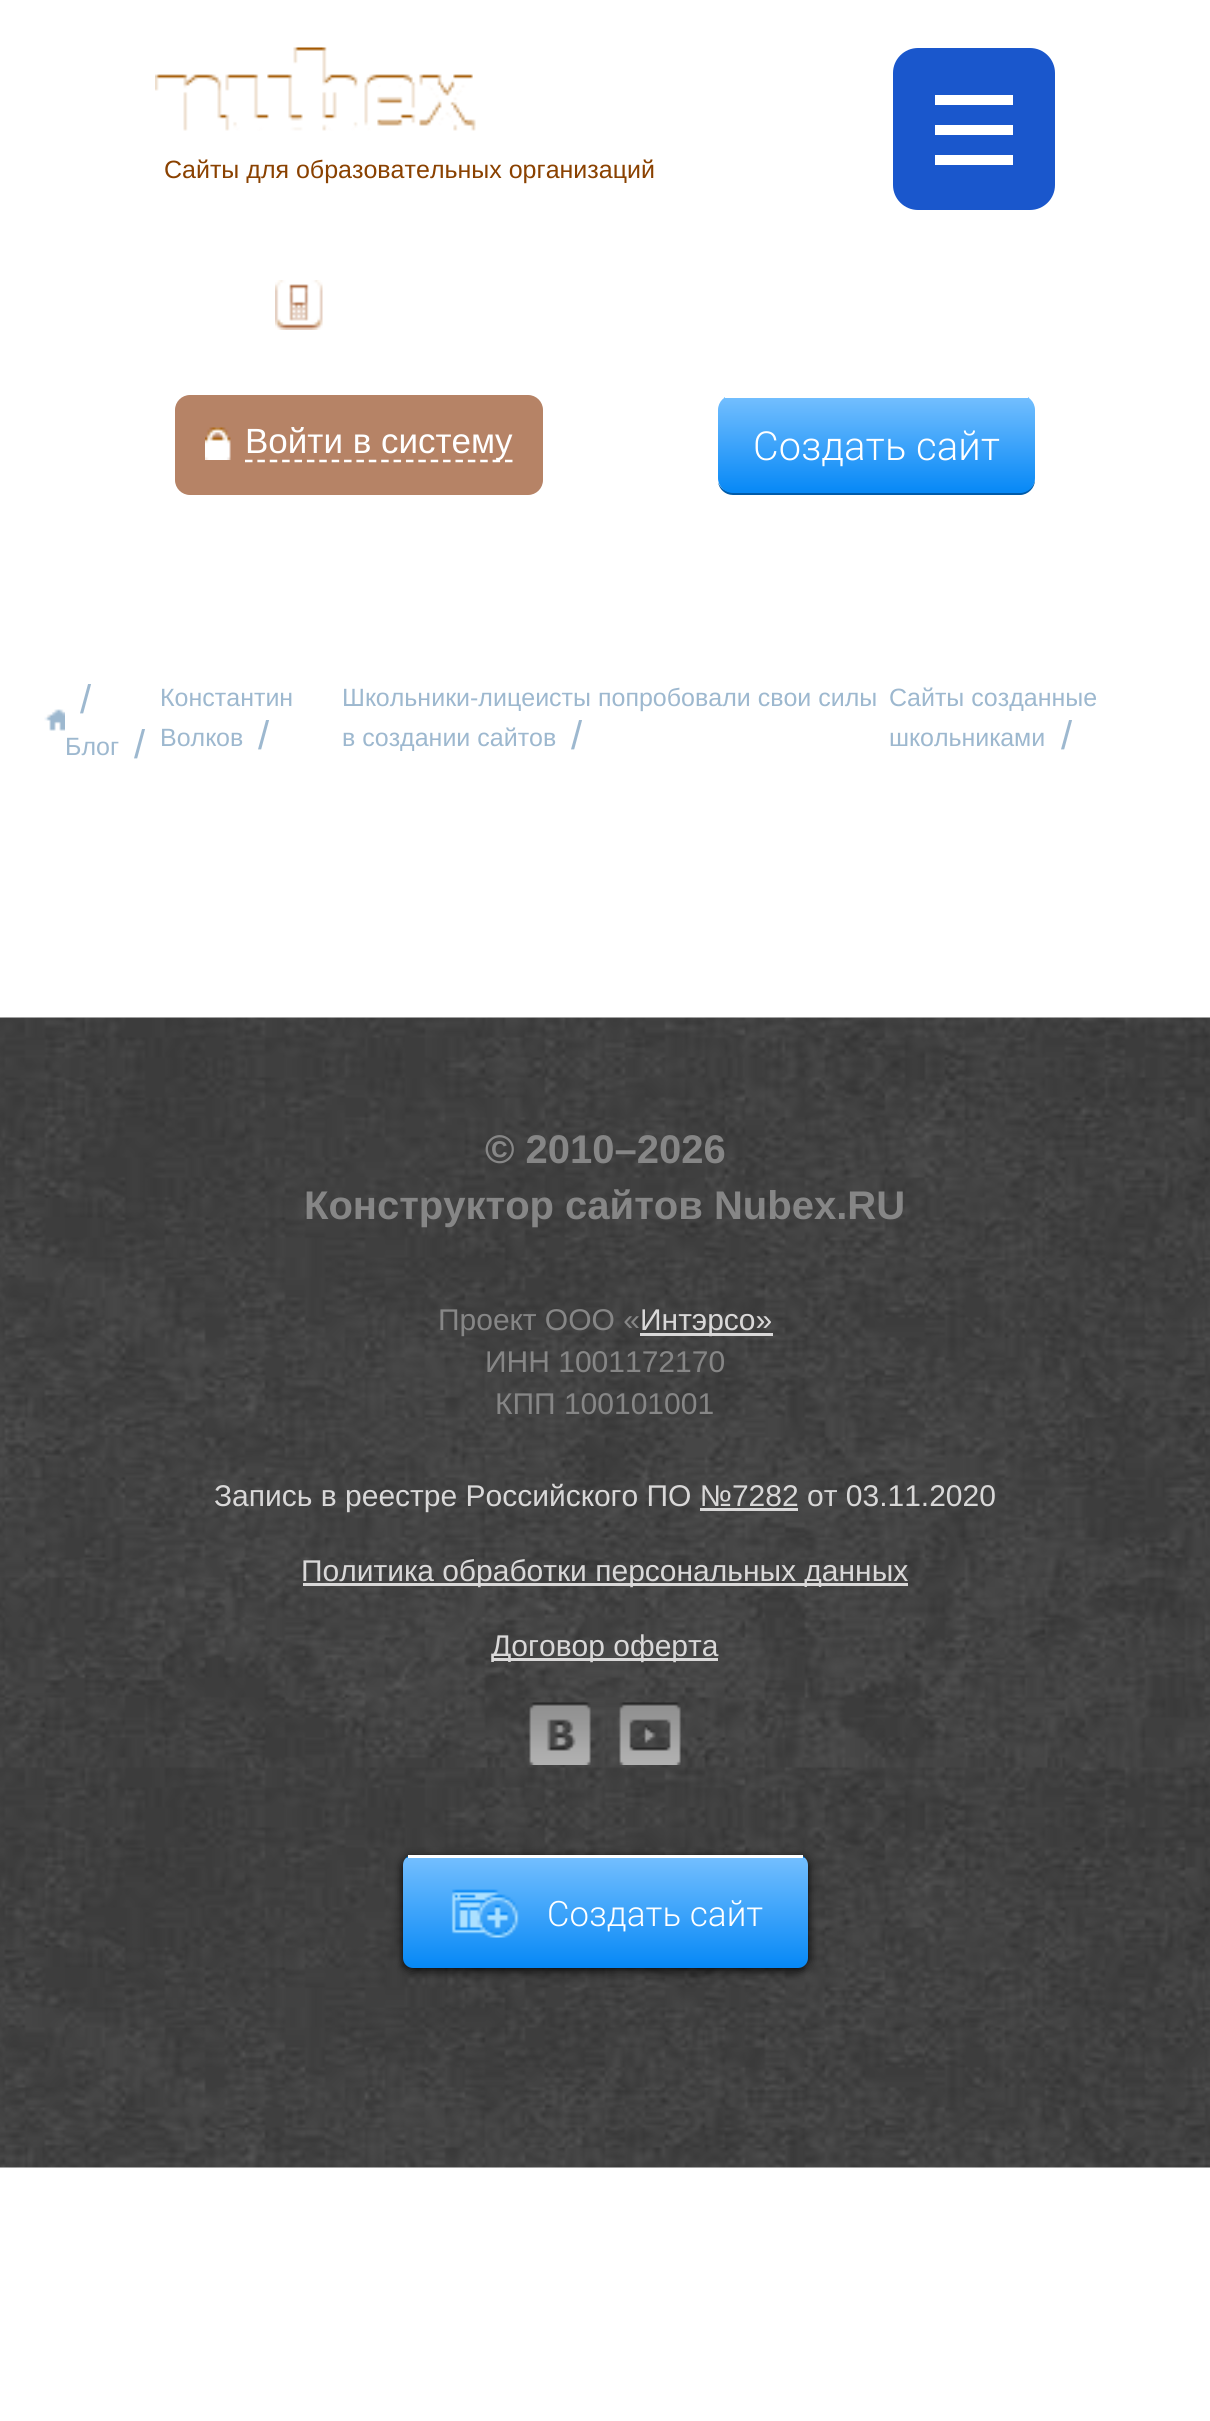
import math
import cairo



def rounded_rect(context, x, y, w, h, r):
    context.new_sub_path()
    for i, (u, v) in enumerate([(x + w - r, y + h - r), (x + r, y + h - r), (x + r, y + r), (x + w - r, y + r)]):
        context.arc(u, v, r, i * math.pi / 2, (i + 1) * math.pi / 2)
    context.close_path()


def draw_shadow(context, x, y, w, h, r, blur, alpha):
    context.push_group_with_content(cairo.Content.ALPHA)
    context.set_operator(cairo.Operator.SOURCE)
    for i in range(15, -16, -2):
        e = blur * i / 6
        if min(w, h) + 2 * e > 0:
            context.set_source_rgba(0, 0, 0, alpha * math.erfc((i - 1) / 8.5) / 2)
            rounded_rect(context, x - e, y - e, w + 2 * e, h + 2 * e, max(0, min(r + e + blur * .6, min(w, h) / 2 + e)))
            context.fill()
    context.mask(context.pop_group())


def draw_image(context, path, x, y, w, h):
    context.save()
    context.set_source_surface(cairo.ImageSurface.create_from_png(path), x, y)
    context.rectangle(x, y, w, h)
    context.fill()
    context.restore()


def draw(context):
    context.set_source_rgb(1, 1, 1)
    context.paint()
    draw_image(context, "images/1.png", 155, 47, 321, 84)
    context.set_source_rgb(26 / 255, 87 / 255, 204 / 255)
    rounded_rect(context, 893, 48, 162, 162, 25)
    context.fill()
    context.set_source_rgb(1, 1, 1)
    context.rectangle(935, 95, 78, 10)
    context.fill()
    context.rectangle(935, 125, 78, 10)
    context.fill()
    context.rectangle(935, 155, 78, 10)
    context.fill()
    draw_image(context, "images/2.png", 275, 280, 48, 50)
    context.set_source_rgb(182 / 255, 131 / 255, 102 / 255)
    rounded_rect(context, 175, 395, 368, 100, 15)
    context.fill()
    draw_image(context, "images/3.png", 205, 427, 26, 33)
    context.new_path()
    context.move_to(245, 461)
    context.line_to(512.5, 461)
    context.set_source_rgb(1, 1, 1)
    context.set_line_width(2.5)
    context.set_dash([7.5, 4.88])
    context.stroke()
    context.set_source_rgb(0, 91 / 255, 169 / 255)
    context.new_path()
    context.move_to(718, 482)
    context.curve_to(719, 489, 725, 495, 733, 495)
    context.line_to(1020, 495)
    context.curve_to(1028, 495, 1035, 488, 1035, 480)
    context.line_to(1035, 478)
    context.curve_to(1035, 486, 1028, 492, 1020, 492)
    context.line_to(732, 492)
    context.curve_to(726, 492, 720, 488, 718, 482)
    context.close_path()
    context.fill()
    context.save()
    rounded_rect(context, 718, 395, 317, 98, 15)
    context.clip()
    gradient = cairo.LinearGradient(876, 303, 876, 398)
    gradient.add_color_stop_rgba(0, 114 / 255, 190 / 255, 254 / 255, 1)
    gradient.add_color_stop_rgba(1, 6 / 255, 136 / 255, 246 / 255, 1)
    context.set_source(gradient)
    context.rectangle(718, 397, 317, 1)
    context.fill()
    gradient = cairo.LinearGradient(876, 398, 876, 493)
    gradient.add_color_stop_rgba(0, 114 / 255, 190 / 255, 254 / 255, 1)
    gradient.add_color_stop_rgba(1, 6 / 255, 136 / 255, 246 / 255, 1)
    context.set_source(gradient)
    context.new_path()
    context.move_to(718, 398)
    context.line_to(1035, 398)
    context.line_to(1035, 478)
    context.curve_to(1035, 486.5, 1028.5, 493, 1020, 493)
    context.line_to(733, 493)
    context.curve_to(724.5, 493, 718, 486.5, 718, 478)
    context.close_path()
    context.fill()
    context.restore()
    context.set_source_rgb(1, 1, 1)
    context.rectangle(725, 395, 303, 3)
    context.fill()
    draw_image(context, "images/4.png", 44, 709, 21, 22)
    draw_image(context, "images/5.png", 0, 1017, 1210, 1151)
    context.set_source_rgb(217 / 255, 216 / 255, 216 / 255)
    context.rectangle(640, 1333, 133, 3)
    context.fill()
    context.rectangle(700, 1508, 98, 3)
    context.fill()
    context.rectangle(303, 1583, 605, 3)
    context.fill()
    context.rectangle(493, 1658, 225, 3)
    context.fill()
    draw_image(context, "images/6.png", 529, 1702, 62, 63)
    draw_image(context, "images/7.png", 619, 1702, 62, 63)
    context.set_source_rgb(0, 0, 0)
    draw_shadow(context, 403, 1858, 405, 112, 10, 5, 1)
    context.save()
    rounded_rect(context, 403, 1855, 405, 113, 10)
    context.clip()
    gradient = cairo.LinearGradient(605, 1748, 605, 1858)
    gradient.add_color_stop_rgba(0, 114 / 255, 190 / 255, 254 / 255, 1)
    gradient.add_color_stop_rgba(1, 6 / 255, 136 / 255, 246 / 255, 1)
    context.set_source(gradient)
    context.rectangle(403, 1856, 405, 2)
    context.fill()
    gradient = cairo.LinearGradient(605, 1858, 605, 1968)
    gradient.add_color_stop_rgba(0, 114 / 255, 190 / 255, 254 / 255, 1)
    gradient.add_color_stop_rgba(1, 6 / 255, 136 / 255, 246 / 255, 1)
    context.set_source(gradient)
    context.new_path()
    context.move_to(403, 1858)
    context.line_to(808, 1858)
    context.line_to(808, 1958)
    context.curve_to(808, 1963.5, 803.5, 1968, 798, 1968)
    context.line_to(413, 1968)
    context.curve_to(407.5, 1968, 403, 1963.5, 403, 1958)
    context.close_path()
    context.fill()
    context.restore()
    context.set_source_rgb(1, 1, 1)
    context.rectangle(408, 1855, 395, 3)
    context.fill()
    draw_image(context, "images/8.png", 451, 1889, 68, 49)
    context.select_font_face("Liberation Sans")
    context.set_font_size(25)
    context.set_source_rgb(138 / 255, 65 / 255, 0)
    context.move_to(164, 178)
    context.show_text("Сайты для образовательных организаций")
    context.set_font_size(35)
    context.set_source_rgb(1, 1, 1)
    context.move_to(245, 453)
    context.show_text("Войти в систему")
    context.select_font_face("Roboto Light")
    context.set_font_size(40)
    context.move_to(753, 460)
    context.show_text("Создать сайт")
    context.select_font_face("Liberation Sans")
    context.set_source_rgb(157 / 255, 184 / 255, 207 / 255)
    context.move_to(80, 713)
    context.show_text("/")
    context.set_font_size(25)
    context.move_to(65, 755)
    context.show_text("Блог")
    context.set_font_size(40)
    context.move_to(134, 758)
    context.show_text("/")
    context.set_font_size(25)
    context.move_to(160, 706)
    context.show_text("Константин")
    context.move_to(160, 746)
    context.show_text("Волков")
    context.set_font_size(40)
    context.move_to(258, 749)
    context.show_text("/")
    context.set_font_size(25)
    context.move_to(342, 706)
    context.show_text("Школьники-лицеисты попробовали свои силы")
    context.move_to(342, 746)
    context.show_text("в создании сайтов")
    context.set_font_size(40)
    context.move_to(571, 749)
    context.show_text("/")
    context.set_font_size(25)
    context.move_to(889, 706)
    context.show_text("Сайты созданные")
    context.move_to(889, 746)
    context.show_text("школьниками")
    context.set_font_size(40)
    context.move_to(1061, 749)
    context.show_text("/")
    context.select_font_face("Liberation Sans", cairo.FontSlant.NORMAL, cairo.FontWeight.BOLD)
    context.set_source_rgb(134 / 255, 134 / 255, 134 / 255)
    context.move_to(485, 1163)
    context.show_text("© 2010–2026")
    context.move_to(304, 1219)
    context.show_text("Конструктор сайтов Nubex.RU")
    context.select_font_face("Liberation Sans")
    context.set_font_size(30)
    context.move_to(438, 1330)
    context.show_text("Проект ООО «")
    context.set_source_rgb(217 / 255, 216 / 255, 216 / 255)
    context.move_to(640, 1330)
    context.show_text("Интэрсо»")
    context.set_source_rgb(134 / 255, 134 / 255, 134 / 255)
    context.move_to(485, 1372)
    context.show_text("ИНН 1001172170")
    context.move_to(495, 1414)
    context.show_text("КПП 100101001")
    context.set_source_rgb(217 / 255, 216 / 255, 216 / 255)
    context.move_to(214, 1506)
    context.show_text("Запись в реестре Российского ПО №7282 от 03.11.2020")
    context.move_to(301, 1581)
    context.show_text("Политика обработки персональных данных")
    context.move_to(491, 1656)
    context.show_text("Договор оферта")
    context.select_font_face("Roboto Light")
    context.set_font_size(35)
    context.set_source_rgb(1, 1, 1)
    context.move_to(547, 1926)
    context.show_text("Создать сайт")


surface = cairo.ImageSurface(cairo.Format.RGB24, 1210, 2421)
context = cairo.Context(surface)
options = cairo.FontOptions()
options.set_hint_metrics(cairo.HintMetrics.OFF)
options.set_hint_style(cairo.HintStyle.NONE)
context.set_font_options(options)
context.set_miter_limit(4)
draw(context)
surface.write_to_png("out.png")
